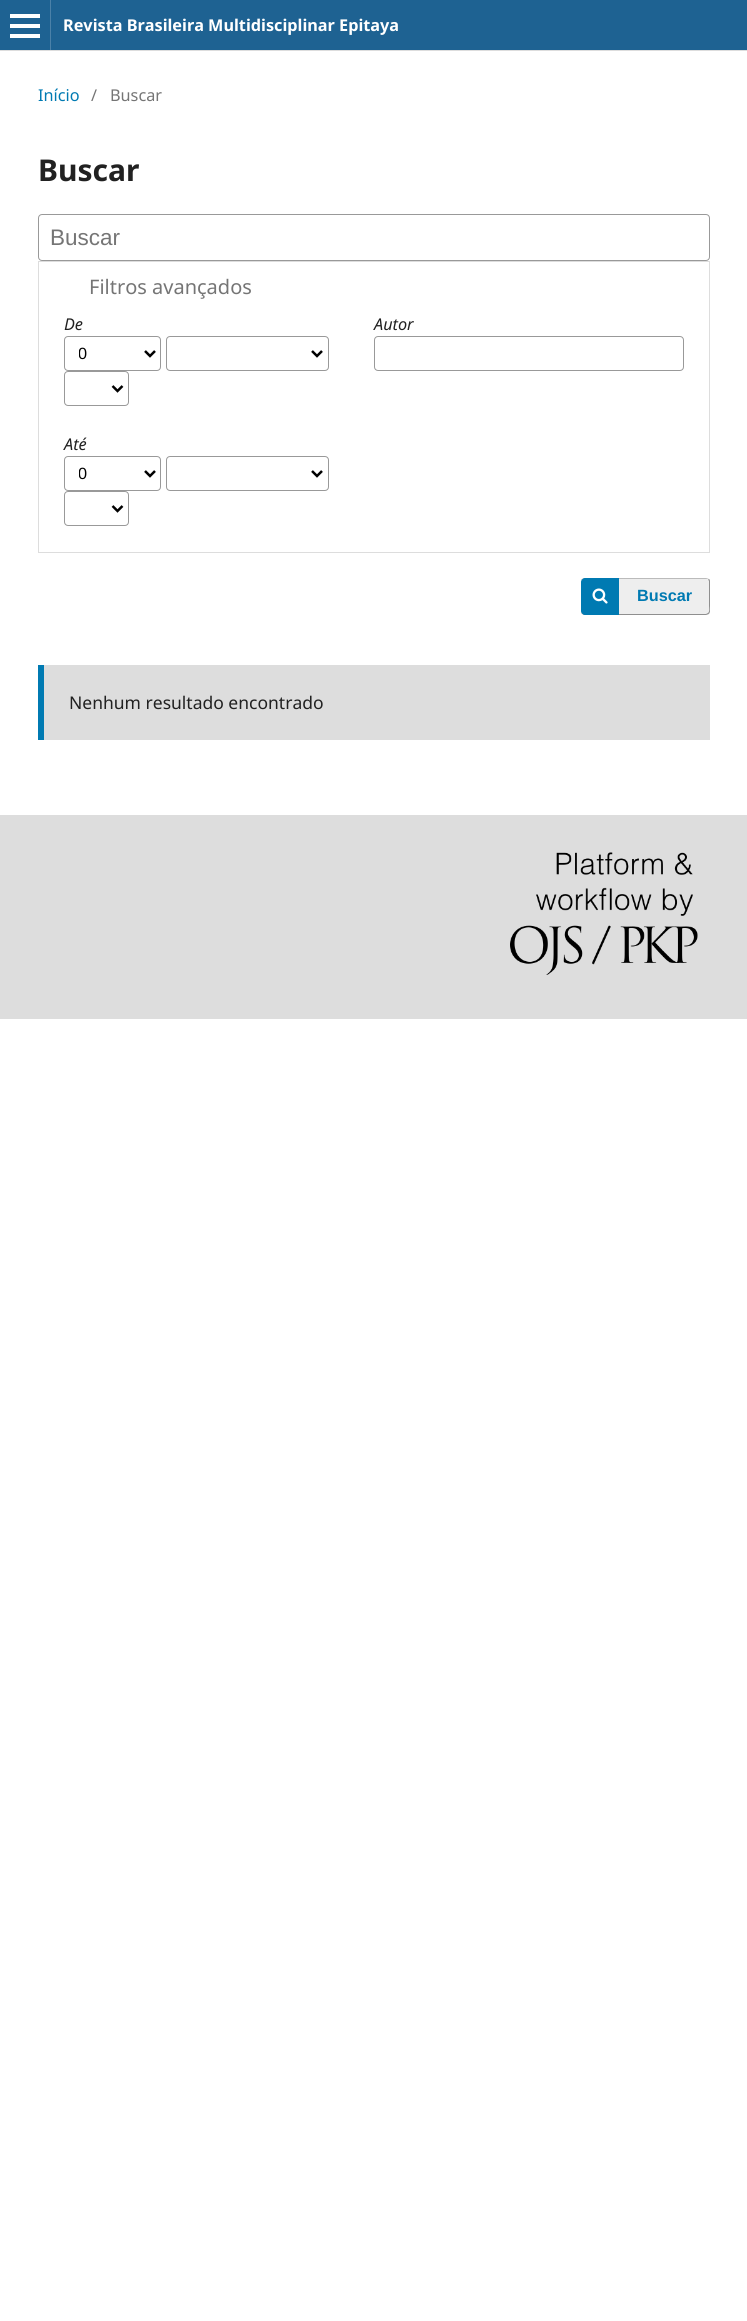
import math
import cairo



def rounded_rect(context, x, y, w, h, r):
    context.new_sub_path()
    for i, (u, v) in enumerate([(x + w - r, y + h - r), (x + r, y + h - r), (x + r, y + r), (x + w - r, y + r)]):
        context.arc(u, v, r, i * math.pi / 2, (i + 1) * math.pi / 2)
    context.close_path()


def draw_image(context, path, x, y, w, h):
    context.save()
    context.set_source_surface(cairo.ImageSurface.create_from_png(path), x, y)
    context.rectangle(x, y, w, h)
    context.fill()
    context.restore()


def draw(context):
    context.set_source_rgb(1, 1, 1)
    context.paint()
    context.set_source_rgb(30 / 255, 98 / 255, 146 / 255)
    context.rectangle(0, 0, 747, 50)
    context.fill()
    context.set_source_rgb(221 / 255, 221 / 255, 221 / 255)
    context.rectangle(0, 50, 747, 1)
    context.fill()
    context.set_source_rgb(75 / 255, 129 / 255, 168 / 255)
    context.rectangle(50, 0, 1, 50)
    context.fill()
    context.set_source_rgb(1, 1, 1)
    context.rectangle(10, 34, 30, 4)
    context.fill()
    context.rectangle(10, 14, 30, 4)
    context.fill()
    context.rectangle(10, 24, 30, 4)
    context.fill()
    rounded_rect(context, 38.5, 214.5, 671, 46, 3.5)
    context.set_source_rgb(153 / 255, 153 / 255, 153 / 255)
    context.set_line_width(1)
    context.stroke()
    context.rectangle(38.5, 261.5, 671, 291)
    context.set_source_rgb(221 / 255, 221 / 255, 221 / 255)
    context.stroke()
    rounded_rect(context, 64.5, 336.5, 96, 34, 3.5)
    context.set_source_rgb(153 / 255, 153 / 255, 153 / 255)
    context.stroke()
    context.new_path()
    context.move_to(145, 351)
    context.line_to(150, 356)
    context.line_to(155, 351)
    context.set_source_rgb(0, 0, 0)
    context.set_line_width(2.5)
    context.stroke()
    rounded_rect(context, 166.5, 336.5, 162, 34, 3.5)
    context.set_source_rgb(153 / 255, 153 / 255, 153 / 255)
    context.set_line_width(1)
    context.stroke()
    context.new_path()
    context.move_to(312, 351)
    context.line_to(317, 356)
    context.line_to(322, 351)
    context.set_source_rgb(0, 0, 0)
    context.set_line_width(2.5)
    context.stroke()
    rounded_rect(context, 64.5, 371.5, 64, 34, 3.5)
    context.set_source_rgb(153 / 255, 153 / 255, 153 / 255)
    context.set_line_width(1)
    context.stroke()
    context.new_path()
    context.move_to(112.5, 386)
    context.line_to(117.5, 391)
    context.line_to(122.5, 386)
    context.set_source_rgb(0, 0, 0)
    context.set_line_width(2.5)
    context.stroke()
    rounded_rect(context, 64.5, 456.5, 96, 34, 3.5)
    context.set_source_rgb(153 / 255, 153 / 255, 153 / 255)
    context.set_line_width(1)
    context.stroke()
    context.new_path()
    context.move_to(145, 471)
    context.line_to(150, 476)
    context.line_to(155, 471)
    context.set_source_rgb(0, 0, 0)
    context.set_line_width(2.5)
    context.stroke()
    rounded_rect(context, 166.5, 456.5, 162, 34, 3.5)
    context.set_source_rgb(153 / 255, 153 / 255, 153 / 255)
    context.set_line_width(1)
    context.stroke()
    context.new_path()
    context.move_to(312, 471)
    context.line_to(317, 476)
    context.line_to(322, 471)
    context.set_source_rgb(0, 0, 0)
    context.set_line_width(2.5)
    context.stroke()
    rounded_rect(context, 64.5, 491.5, 64, 34, 3.5)
    context.set_source_rgb(153 / 255, 153 / 255, 153 / 255)
    context.set_line_width(1)
    context.stroke()
    context.new_path()
    context.move_to(112.5, 506)
    context.line_to(117.5, 511)
    context.line_to(122.5, 506)
    context.set_source_rgb(0, 0, 0)
    context.set_line_width(2.5)
    context.stroke()
    rounded_rect(context, 374.5, 336.5, 309, 34, 3.5)
    context.set_source_rgb(153 / 255, 153 / 255, 153 / 255)
    context.set_line_width(1)
    context.stroke()
    context.set_source_rgb(238 / 255, 238 / 255, 238 / 255)
    rounded_rect(context, 581, 578, 129, 37, 4)
    context.fill()
    context.set_source_rgb(187 / 255, 187 / 255, 187 / 255)
    context.new_path()
    context.move_to(585, 578)
    context.line_to(706, 578)
    context.line_to(709, 579)
    context.line_to(708, 579)
    context.line_to(706, 579)
    context.line_to(585, 579)
    context.curve_to(583, 579, 582, 580, 581, 580)
    context.curve_to(581, 579, 584, 578, 585, 578)
    context.close_path()
    context.fill()
    context.set_source_rgba(0, 0, 0, 0.4)
    context.new_path()
    context.move_to(709, 579)
    context.curve_to(709.5, 579, 710, 580, 710, 581)
    context.line_to(710, 611)
    context.curve_to(710, 612, 709.5, 613, 709, 614)
    context.line_to(708, 613)
    context.curve_to(710, 611.5, 709, 607, 709, 606)
    context.line_to(709, 581)
    context.line_to(708, 579.5)
    context.close_path()
    context.fill()
    context.new_path()
    context.move_to(581, 612)
    context.curve_to(582, 614, 584, 614, 585, 614)
    context.line_to(706, 614)
    context.line_to(708, 613)
    context.line_to(709, 614)
    context.line_to(706, 615)
    context.line_to(585, 615)
    context.curve_to(584, 615, 581, 614, 581, 612)
    context.close_path()
    context.fill()
    context.set_source_rgb(0, 122 / 255, 178 / 255)
    context.new_path()
    context.move_to(585, 578)
    context.line_to(619, 578)
    context.line_to(619, 615)
    context.line_to(585, 615)
    context.curve_to(583, 615, 581, 613, 581, 611)
    context.line_to(581, 582)
    context.curve_to(581, 580, 583, 578, 585, 578)
    context.close_path()
    context.fill()
    draw_image(context, "images/1.png", 592, 588, 16, 16)
    context.set_source_rgb(221 / 255, 221 / 255, 221 / 255)
    context.rectangle(44, 665, 666, 75)
    context.fill()
    context.set_source_rgb(0, 122 / 255, 178 / 255)
    context.rectangle(38, 665, 6, 75)
    context.fill()
    context.set_source_rgb(221 / 255, 221 / 255, 221 / 255)
    context.rectangle(0, 815, 747, 204)
    context.fill()
    draw_image(context, "images/2.png", 510, 852, 188, 123)
    context.select_font_face("Noto Sans", cairo.FontSlant.NORMAL, cairo.FontWeight.BOLD)
    context.set_font_size(16.25)
    context.set_source_rgb(1, 1, 1)
    context.move_to(63, 31)
    context.show_text("Revista Brasileira Multidisciplinar Epitaya")
    context.select_font_face("Noto Sans")
    context.set_source_rgb(0, 122 / 255, 178 / 255)
    context.move_to(38, 101)
    context.show_text("Início")
    context.set_source_rgb(117 / 255, 117 / 255, 117 / 255)
    context.move_to(91, 101)
    context.show_text("/")
    context.move_to(110, 101)
    context.show_text("Buscar")
    context.select_font_face("Noto Sans", cairo.FontSlant.NORMAL, cairo.FontWeight.BOLD)
    context.set_font_size(30)
    context.set_source_rgb(33 / 255, 33 / 255, 33 / 255)
    context.move_to(38, 181)
    context.show_text("Buscar")
    context.select_font_face("Liberation Sans")
    context.set_font_size(22.5)
    context.set_source_rgb(117 / 255, 117 / 255, 117 / 255)
    context.move_to(50, 245)
    context.show_text("Buscar")
    context.select_font_face("Noto Sans")
    context.set_font_size(20)
    context.move_to(89, 294)
    context.show_text("Filtros avançados")
    context.select_font_face("Noto Sans", cairo.FontSlant.ITALIC)
    context.set_font_size(16.25)
    context.set_source_rgb(33 / 255, 33 / 255, 33 / 255)
    context.move_to(64, 330)
    context.show_text("De")
    context.save()
    context.rectangle(79, 344, 54, 21)
    context.clip()
    context.select_font_face("Liberation Sans")
    context.set_source_rgb(0, 0, 0)
    context.move_to(78, 359)
    context.show_text("0")
    context.restore()
    context.move_to(64, 450)
    context.show_text("Até")
    context.save()
    context.rectangle(79, 464, 54, 21)
    context.clip()
    context.select_font_face("Liberation Sans")
    context.set_source_rgb(0, 0, 0)
    context.move_to(78, 479)
    context.show_text("0")
    context.restore()
    context.move_to(374, 330)
    context.show_text("Autor")
    context.select_font_face("Liberation Sans", cairo.FontSlant.NORMAL, cairo.FontWeight.BOLD)
    context.set_source_rgb(0, 122 / 255, 178 / 255)
    context.move_to(637, 601)
    context.show_text("Buscar")
    context.select_font_face("Noto Sans")
    context.set_font_size(17.5)
    context.set_source_rgb(33 / 255, 33 / 255, 33 / 255)
    context.move_to(69, 709)
    context.show_text("Nenhum resultado encontrado")


surface = cairo.ImageSurface(cairo.Format.RGB24, 747, 2321)
context = cairo.Context(surface)
options = cairo.FontOptions()
options.set_hint_metrics(cairo.HintMetrics.OFF)
options.set_hint_style(cairo.HintStyle.NONE)
context.set_font_options(options)
context.set_miter_limit(4)
draw(context)
surface.write_to_png("out.png")
